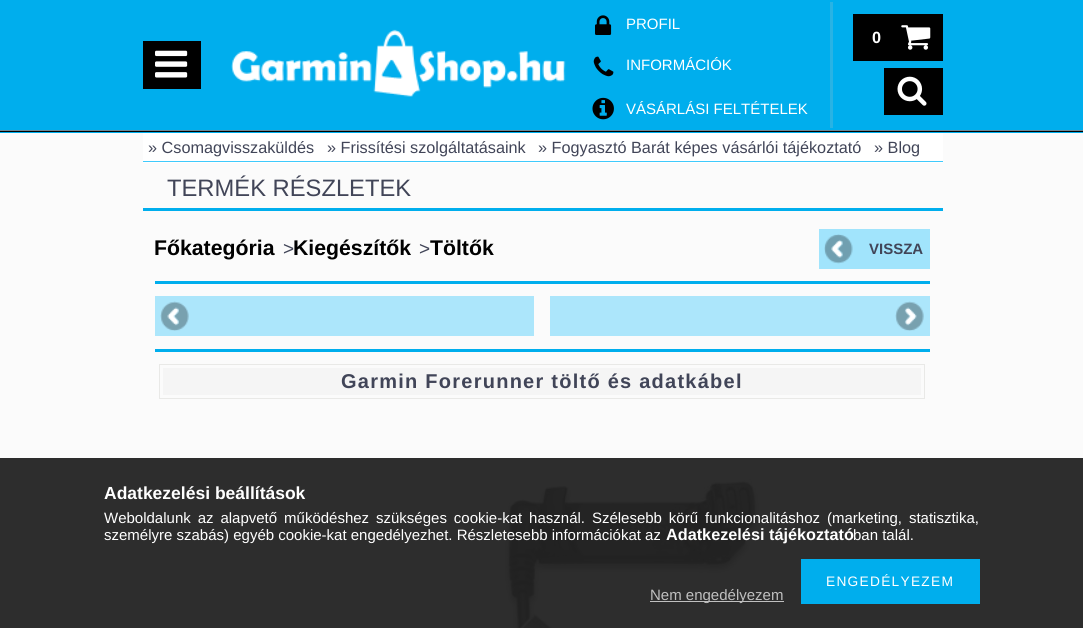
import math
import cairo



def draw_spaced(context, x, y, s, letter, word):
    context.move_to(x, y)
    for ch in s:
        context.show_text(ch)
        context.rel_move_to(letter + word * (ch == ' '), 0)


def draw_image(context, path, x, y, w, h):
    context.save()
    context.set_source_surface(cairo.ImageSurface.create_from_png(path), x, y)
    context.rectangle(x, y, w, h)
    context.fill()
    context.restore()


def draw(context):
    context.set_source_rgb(251 / 255, 251 / 255, 251 / 255)
    context.paint()
    context.set_source_rgb(45 / 255, 45 / 255, 45 / 255)
    context.rectangle(0, 458, 1083, 170)
    context.fill()
    context.set_source_rgb(0, 174 / 255, 237 / 255)
    context.rectangle(0, 0, 1083, 133)
    context.fill()
    context.set_source_rgb(0, 1 / 255, 0)
    context.rectangle(0, 131, 1083, 1)
    context.fill()
    context.set_source_rgb(109 / 255, 134 / 255, 150 / 255)
    context.rectangle(0, 130, 1083, 1)
    context.fill()
    draw_image(context, "images/1.png", 231, 29, 335, 68)
    context.set_source_rgb(41 / 255, 179 / 255, 228 / 255)
    context.rectangle(830, 2, 3, 126)
    context.fill()
    draw_image(context, "images/2.png", 595, 15, 17, 20)
    draw_image(context, "images/3.png", 593, 56, 21, 21)
    draw_image(context, "images/4.png", 592, 97, 22, 23)
    context.set_source_rgb(0, 0, 0)
    context.rectangle(853, 14, 90, 47)
    context.fill()
    draw_image(context, "images/5.png", 901, 25, 30, 25)
    context.rectangle(884, 68, 59, 47)
    context.fill()
    draw_image(context, "images/6.png", 897, 76, 30, 30)
    context.rectangle(143, 41, 58, 48)
    context.fill()
    draw_image(context, "images/7.png", 155, 50, 33, 28)
    context.set_source_rgb(1, 1, 1)
    context.rectangle(143, 133, 800, 30)
    context.fill()
    context.set_source_rgb(63 / 255, 202 / 255, 252 / 255)
    context.rectangle(143, 161, 800, 1)
    context.fill()
    context.set_source_rgb(0, 174 / 255, 237 / 255)
    context.rectangle(143, 208, 800, 3)
    context.fill()
    context.set_source_rgb(161 / 255, 228 / 255, 252 / 255)
    context.rectangle(819, 229, 111, 40)
    context.fill()
    draw_image(context, "images/8.png", 824, 234, 29, 30)
    context.set_source_rgb(0, 174 / 255, 237 / 255)
    context.rectangle(155, 281, 775, 3)
    context.fill()
    context.set_source_rgb(172 / 255, 230 / 255, 251 / 255)
    context.rectangle(155, 296, 379, 40)
    context.fill()
    draw_image(context, "images/9.png", 160, 301, 29, 30)
    context.rectangle(550, 296, 380, 40)
    context.fill()
    draw_image(context, "images/10.png", 895, 301, 29, 30)
    context.set_source_rgb(0, 174 / 255, 237 / 255)
    context.rectangle(155, 349, 775, 3)
    context.fill()
    context.rectangle(159.5, 364.5, 765, 34)
    context.set_source_rgb(233 / 255, 233 / 255, 231 / 255)
    context.set_line_width(1)
    context.stroke()
    context.set_source_rgb(245 / 255, 245 / 255, 245 / 255)
    context.rectangle(163, 368, 758, 27)
    context.fill()
    draw_image(context, "images/11.png", 504, 479, 256, 149)
    context.set_source_rgb(0, 174 / 255, 237 / 255)
    context.rectangle(801, 559, 179, 45)
    context.fill()
    context.set_source_rgb(192 / 255, 192 / 255, 192 / 255)
    context.rectangle(650, 601, 134, 1)
    context.fill()
    context.select_font_face("Liberation Sans")
    context.set_font_size(15)
    context.set_source_rgb(1, 1, 1)
    context.move_to(626, 29)
    context.show_text("PROFIL")
    context.move_to(626, 70)
    context.show_text("INFORMÁCIÓK")
    context.move_to(626, 114)
    context.show_text("VÁSÁRLÁSI FELTÉTELEK")
    context.select_font_face("Liberation Sans", cairo.FontSlant.NORMAL, cairo.FontWeight.BOLD)
    context.set_font_size(16.25)
    context.move_to(872, 43)
    context.show_text("0")
    context.select_font_face("Liberation Sans")
    context.set_source_rgb(65 / 255, 69 / 255, 88 / 255)
    context.move_to(148, 153)
    context.show_text("» Csomagvisszaküldés")
    context.move_to(327, 153)
    context.show_text("» Frissítési szolgáltatásaink")
    context.move_to(538, 153)
    context.show_text("» Fogyasztó Barát képes vásárlói tájékoztató")
    context.move_to(874, 153)
    context.show_text("» Blog")
    context.set_font_size(23.75)
    context.move_to(167, 196)
    context.show_text("TERMÉK RÉSZLETEK")
    context.select_font_face("Liberation Sans", cairo.FontSlant.NORMAL, cairo.FontWeight.BOLD)
    context.set_font_size(21.25)
    context.set_source_rgb(0, 0, 0)
    context.move_to(154, 255)
    context.show_text("Főkategória")
    context.select_font_face("Liberation Sans")
    context.set_font_size(19)
    context.set_source_rgb(65 / 255, 69 / 255, 88 / 255)
    context.move_to(283, 255)
    context.show_text(">")
    context.select_font_face("Liberation Sans", cairo.FontSlant.NORMAL, cairo.FontWeight.BOLD)
    context.set_font_size(21.25)
    context.set_source_rgb(0, 0, 0)
    context.move_to(293, 255)
    context.show_text("Kiegészítők")
    context.select_font_face("Liberation Sans")
    context.set_font_size(19)
    context.set_source_rgb(65 / 255, 69 / 255, 88 / 255)
    context.move_to(419, 255)
    context.show_text(">")
    context.select_font_face("Liberation Sans", cairo.FontSlant.NORMAL, cairo.FontWeight.BOLD)
    context.set_font_size(21.25)
    context.set_source_rgb(0, 0, 0)
    context.move_to(430, 255)
    context.show_text("Töltők")
    context.set_font_size(15)
    context.set_source_rgb(65 / 255, 69 / 255, 88 / 255)
    context.move_to(869, 254)
    context.show_text("VISSZA")
    context.set_font_size(20)
    draw_spaced(context, 341, 388, "Garmin Forerunner töltő és adatkábel", 1.25, 0)
    context.set_font_size(17.5)
    context.set_source_rgb(1, 1, 1)
    context.move_to(104, 499)
    context.show_text("Adatkezelési beállítások")
    context.select_font_face("Liberation Sans")
    context.set_font_size(15)
    draw_spaced(context, 104, 523, "Weboldalunk az alapvető működéshez szükséges cookie-kat használ. Szélesebb körű funkcionalitáshoz (marketing, statisztika,", 0, 2.75)
    context.move_to(104, 540)
    context.show_text("személyre szabás) egyéb cookie-kat engedélyezhet. Részletesebb információkat az")
    context.select_font_face("Liberation Sans", cairo.FontSlant.NORMAL, cairo.FontWeight.BOLD)
    context.set_font_size(16.25)
    context.move_to(666, 540)
    context.show_text("Adatkezelési tájékoztató")
    context.select_font_face("Liberation Sans")
    context.set_font_size(15)
    context.move_to(853, 540)
    context.show_text("ban talál.")
    context.set_font_size(13.75)
    draw_spaced(context, 826, 586, "ENGEDÉLYEZEM", 1.25, 0)
    context.set_font_size(15)
    context.set_source_rgb(192 / 255, 192 / 255, 192 / 255)
    context.move_to(650, 600)
    context.show_text("Nem engedélyezem")


surface = cairo.ImageSurface(cairo.Format.RGB24, 1083, 628)
context = cairo.Context(surface)
options = cairo.FontOptions()
options.set_hint_metrics(cairo.HintMetrics.OFF)
options.set_hint_style(cairo.HintStyle.NONE)
context.set_font_options(options)
context.set_miter_limit(4)
draw(context)
surface.write_to_png("out.png")
